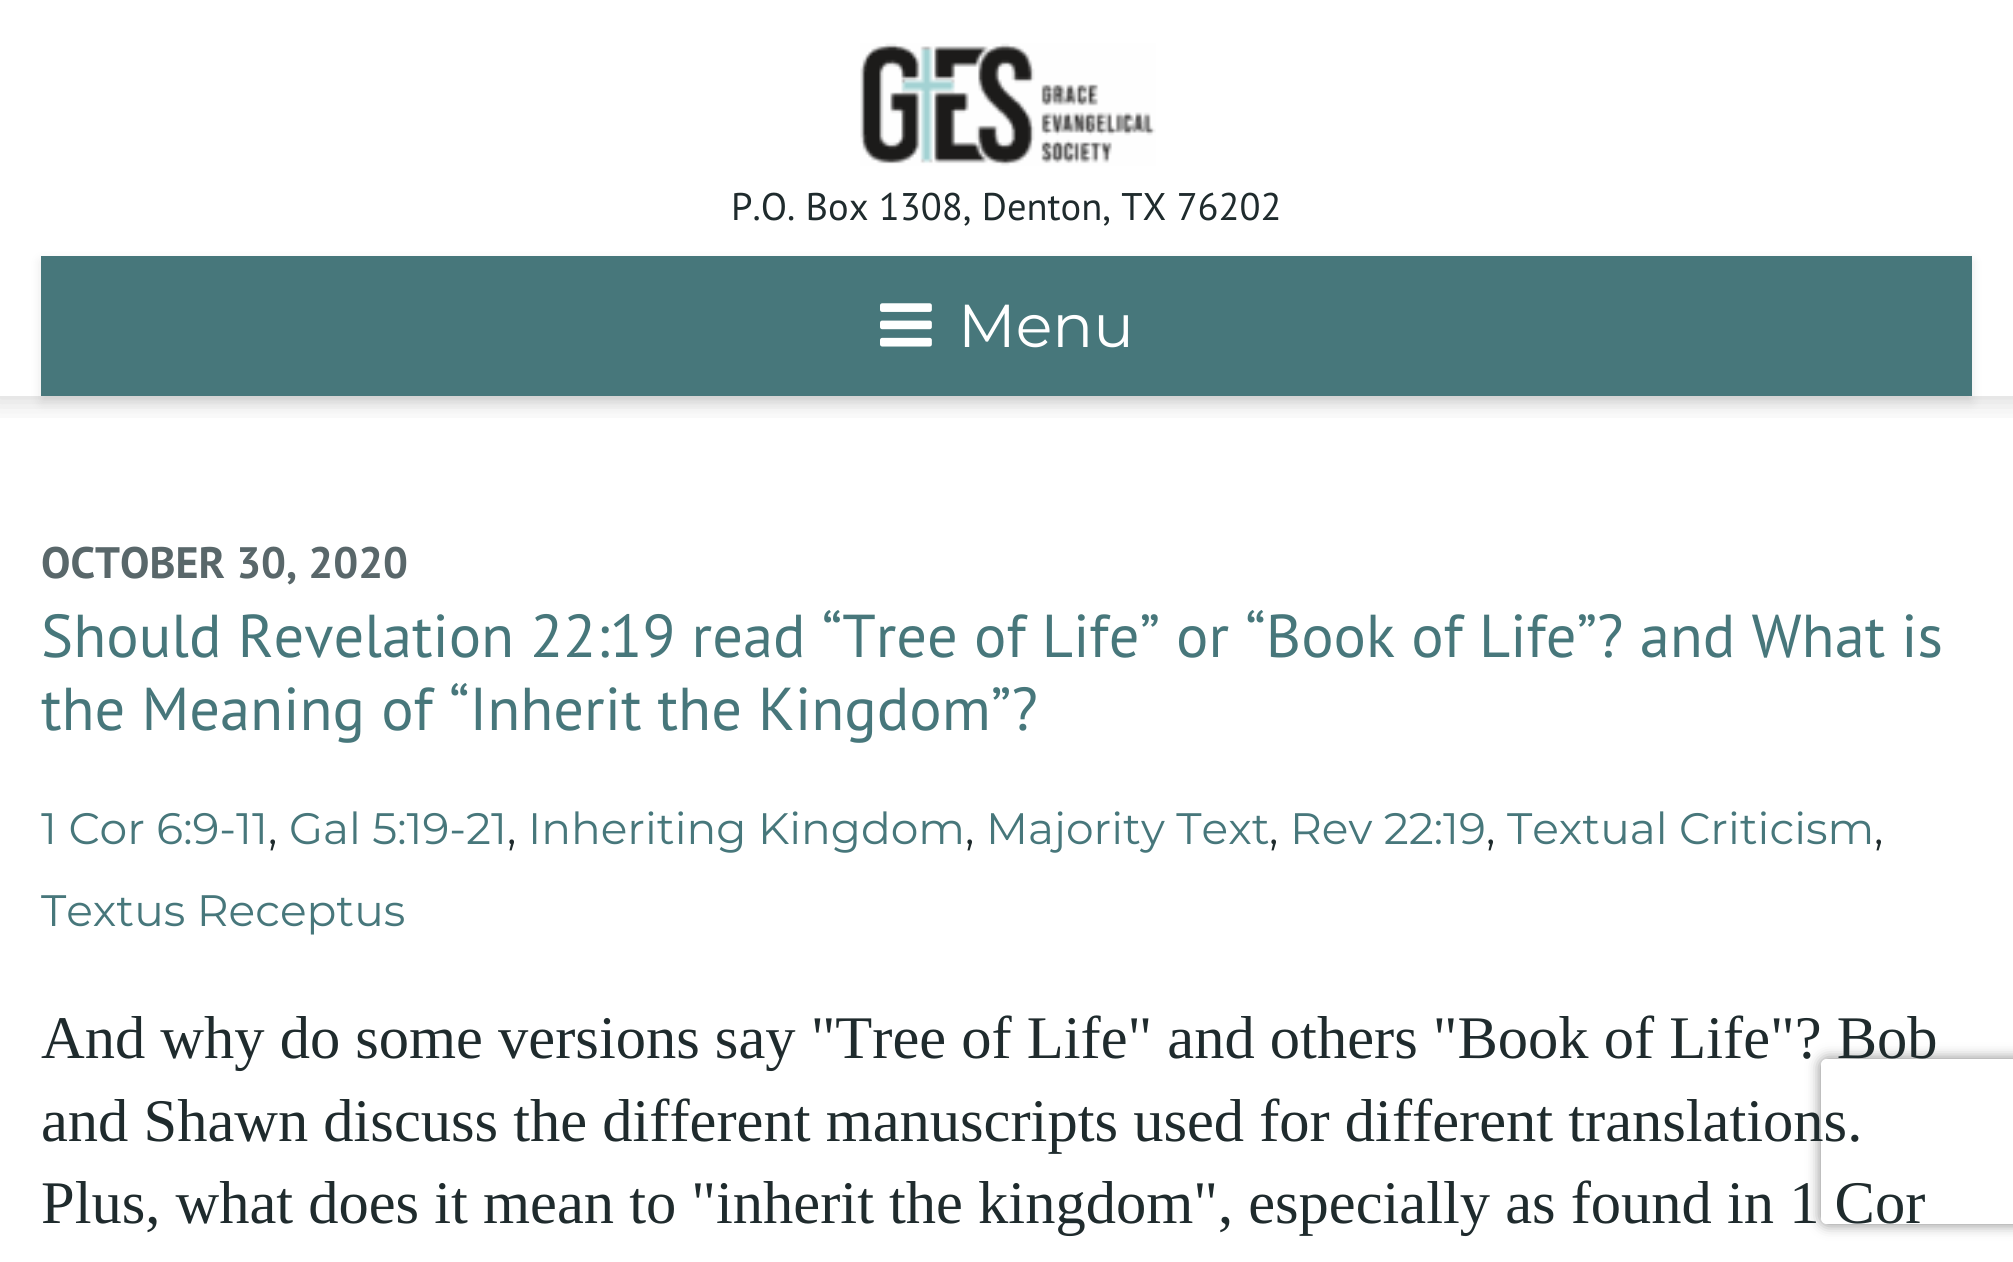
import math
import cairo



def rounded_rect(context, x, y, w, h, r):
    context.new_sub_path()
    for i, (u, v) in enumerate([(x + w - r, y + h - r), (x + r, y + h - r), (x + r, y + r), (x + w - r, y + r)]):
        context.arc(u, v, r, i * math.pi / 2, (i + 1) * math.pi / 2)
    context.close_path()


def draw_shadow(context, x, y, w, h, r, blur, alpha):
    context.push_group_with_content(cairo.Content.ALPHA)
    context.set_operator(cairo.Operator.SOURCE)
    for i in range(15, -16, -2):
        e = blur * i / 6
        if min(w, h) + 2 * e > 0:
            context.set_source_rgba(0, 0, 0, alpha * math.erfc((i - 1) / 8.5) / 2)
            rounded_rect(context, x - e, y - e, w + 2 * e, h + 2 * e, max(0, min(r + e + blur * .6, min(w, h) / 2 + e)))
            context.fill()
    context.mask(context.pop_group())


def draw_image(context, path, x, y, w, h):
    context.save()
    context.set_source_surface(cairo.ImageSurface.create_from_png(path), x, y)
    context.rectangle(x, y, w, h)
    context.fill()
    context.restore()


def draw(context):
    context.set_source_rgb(1, 1, 1)
    context.paint()
    context.save()
    context.rectangle(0, 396, 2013, 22)
    context.clip()
    context.set_source_rgb(0, 0, 0)
    draw_shadow(context, -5, -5, 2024, 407, 0, 14, 0.15)
    context.restore()
    draw_image(context, "images/1.png", 860, 43, 296, 123)
    context.set_source_rgb(0, 0, 0)
    draw_shadow(context, 41, 261, 1931, 141, 0, 5.5, 0.1)
    context.set_source_rgb(71 / 255, 119 / 255, 123 / 255)
    context.rectangle(41, 256, 1931, 140)
    context.fill()
    draw_image(context, "images/2.png", 880, 303, 52, 44)
    context.save()
    context.set_fill_rule(cairo.FillRule.EVEN_ODD)
    context.new_path()
    context.move_to(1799, 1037)
    context.line_to(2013, 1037)
    context.line_to(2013, 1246)
    context.line_to(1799, 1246)
    context.close_path()
    context.move_to(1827, 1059)
    context.line_to(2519, 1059)
    context.curve_to(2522.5, 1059, 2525, 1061.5, 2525, 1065)
    context.line_to(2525, 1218)
    context.curve_to(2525, 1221.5, 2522.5, 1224, 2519, 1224)
    context.line_to(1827, 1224)
    context.curve_to(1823.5, 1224, 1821, 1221.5, 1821, 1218)
    context.line_to(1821, 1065)
    context.curve_to(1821, 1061.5, 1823.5, 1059, 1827, 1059)
    context.close_path()
    context.clip()
    context.set_source_rgb(128 / 255, 128 / 255, 128 / 255)
    draw_shadow(context, 1821, 1059, 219, 165, 6, 7, 1)
    context.restore()
    context.select_font_face("PT Sans")
    context.set_font_size(38.5)
    context.set_source_rgb(31 / 255, 43 / 255, 45 / 255)
    context.move_to(731, 220)
    context.show_text("P.O. Box 1308, Denton, TX 76202")
    context.select_font_face("Montserrat")
    context.set_font_size(60.5)
    context.set_source_rgb(1, 1, 1)
    context.move_to(958, 347)
    context.show_text("Menu")
    context.select_font_face("PT Sans", cairo.FontSlant.NORMAL, cairo.FontWeight.BOLD)
    context.set_font_size(44)
    context.set_source_rgb(89 / 255, 103 / 255, 106 / 255)
    context.move_to(41, 578)
    context.show_text("OCTOBER 30, 2020")
    context.select_font_face("PT Sans")
    context.set_font_size(60.5)
    context.set_source_rgb(71 / 255, 119 / 255, 123 / 255)
    context.move_to(41, 657)
    context.show_text("Should Revelation 22:19 read “Tree of Life” or “Book of Life”? and What is")
    context.move_to(41, 730)
    context.show_text("the Meaning of “Inherit the Kingdom”?")
    context.select_font_face("Montserrat")
    context.set_font_size(44)
    context.move_to(41, 844)
    context.show_text("1 Cor 6:9-11")
    context.set_source_rgb(31 / 255, 43 / 255, 45 / 255)
    context.move_to(268, 844)
    context.show_text(",")
    context.set_source_rgb(71 / 255, 119 / 255, 123 / 255)
    context.move_to(289, 844)
    context.show_text("Gal 5:19-21")
    context.set_source_rgb(31 / 255, 43 / 255, 45 / 255)
    context.move_to(507, 844)
    context.show_text(",")
    context.set_source_rgb(71 / 255, 119 / 255, 123 / 255)
    context.move_to(528, 844)
    context.show_text("Inheriting Kingdom")
    context.set_source_rgb(31 / 255, 43 / 255, 45 / 255)
    context.move_to(965, 844)
    context.show_text(",")
    context.set_source_rgb(71 / 255, 119 / 255, 123 / 255)
    context.move_to(986, 844)
    context.show_text("Majority Text")
    context.set_source_rgb(31 / 255, 43 / 255, 45 / 255)
    context.move_to(1269, 844)
    context.show_text(",")
    context.set_source_rgb(71 / 255, 119 / 255, 123 / 255)
    context.move_to(1290, 844)
    context.show_text("Rev 22:19")
    context.set_source_rgb(31 / 255, 43 / 255, 45 / 255)
    context.move_to(1486, 844)
    context.show_text(",")
    context.set_source_rgb(71 / 255, 119 / 255, 123 / 255)
    context.move_to(1507, 844)
    context.show_text("Textual Criticism")
    context.set_source_rgb(31 / 255, 43 / 255, 45 / 255)
    context.move_to(1874, 844)
    context.show_text(",")
    context.set_source_rgb(71 / 255, 119 / 255, 123 / 255)
    context.move_to(41, 926)
    context.show_text("Textus Receptus")
    context.select_font_face("Liberation Serif")
    context.set_font_size(60.5)
    context.set_source_rgb(31 / 255, 43 / 255, 45 / 255)
    context.move_to(41, 1058)
    context.show_text("And why do some versions say \"Tree of Life\" and others \"Book of Life\"? Bob")
    context.move_to(41, 1141)
    context.show_text("and Shawn discuss the different manuscripts used for different translations.")
    context.move_to(41, 1223)
    context.show_text("Plus, what does it mean to \"inherit the kingdom\", especially as found in 1 Cor")


surface = cairo.ImageSurface(cairo.Format.RGB24, 2013, 1262)
context = cairo.Context(surface)
options = cairo.FontOptions()
options.set_hint_metrics(cairo.HintMetrics.OFF)
options.set_hint_style(cairo.HintStyle.NONE)
context.set_font_options(options)
context.set_miter_limit(4)
draw(context)
surface.write_to_png("out.png")
